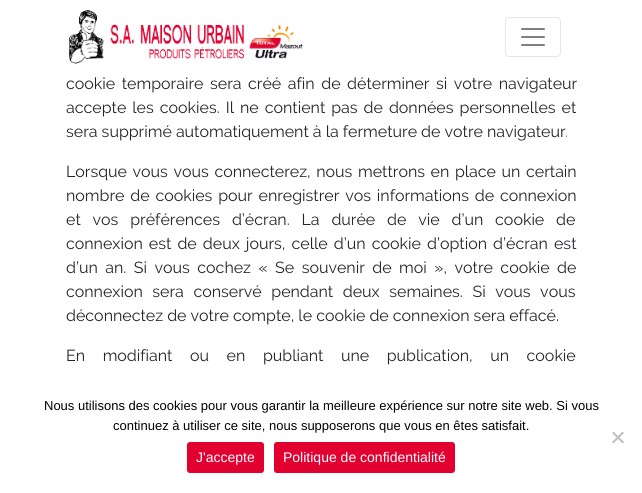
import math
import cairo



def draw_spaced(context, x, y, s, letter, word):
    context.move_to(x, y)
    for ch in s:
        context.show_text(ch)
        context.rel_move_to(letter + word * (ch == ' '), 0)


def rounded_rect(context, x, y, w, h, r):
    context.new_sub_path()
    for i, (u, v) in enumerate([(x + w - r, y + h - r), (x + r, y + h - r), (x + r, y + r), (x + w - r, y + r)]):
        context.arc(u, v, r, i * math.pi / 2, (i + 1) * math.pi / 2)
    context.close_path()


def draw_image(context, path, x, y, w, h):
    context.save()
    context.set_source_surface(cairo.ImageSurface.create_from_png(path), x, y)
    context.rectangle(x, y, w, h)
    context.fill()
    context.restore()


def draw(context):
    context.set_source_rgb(1, 1, 1)
    context.paint()
    draw_image(context, "images/1.png", 68, 10, 235, 54)
    rounded_rect(context, 505.5, 17.5, 55, 39, 3.5)
    context.set_source_rgb(230 / 255, 230 / 255, 230 / 255)
    context.set_line_width(1)
    context.stroke()
    draw_image(context, "images/2.png", 521, 28, 24, 18)
    context.set_source_rgb(192 / 255, 192 / 255, 192 / 255)
    context.new_path()
    context.move_to(622.5, 431.5)
    context.line_to(624, 433)
    context.line_to(613.5, 443.5)
    context.line_to(612, 442)
    context.close_path()
    context.fill()
    context.new_path()
    context.move_to(612, 433)
    context.line_to(613.5, 431.5)
    context.line_to(624, 442)
    context.line_to(622.5, 443.5)
    context.close_path()
    context.fill()
    context.set_source_rgb(226 / 255, 0, 49 / 255)
    rounded_rect(context, 187.5, 442.5, 76, 30, 2.5)
    context.fill_preserve()
    context.stroke()
    rounded_rect(context, 274.5, 442.5, 180, 30, 2.5)
    context.fill_preserve()
    context.stroke()
    context.select_font_face("Raleway")
    context.set_font_size(16)
    context.set_source_rgb(33 / 255, 37 / 255, 41 / 255)
    draw_spaced(context, 66, 89, "cookie temporaire sera créé afin de déterminer si votre navigateur", 0, 2.5)
    draw_spaced(context, 66, 113, "accepte les cookies. Il ne contient pas de données personnelles et", 0, 1.9)
    context.move_to(66, 137)
    context.show_text("sera supprimé automatiquement à la fermeture de votre navigateur.")
    draw_spaced(context, 66, 177, "Lorsque vous vous connecterez, nous mettrons en place un certain", 0, 1.5)
    draw_spaced(context, 66, 201, "nombre de cookies pour enregistrer vos informations de connexion", 0, 1.75)
    draw_spaced(context, 66, 225, "et vos préférences d’écran. La durée de vie d’un cookie de", 0, 7.75)
    draw_spaced(context, 66, 249, "connexion est de deux jours, celle d’un cookie d’option d’écran est", 0, 2)
    draw_spaced(context, 66, 273, "d’un an. Si vous cochez « Se souvenir de moi », votre cookie de", 0, 3.4)
    draw_spaced(context, 66, 297, "connexion sera conservé pendant deux semaines. Si vous vous", 0, 5.5)
    context.move_to(66, 321)
    context.show_text("déconnectez de votre compte, le cookie de connexion sera effacé.")
    draw_spaced(context, 66, 361, "En modifiant ou en publiant une publication, un cookie", 0, 13.5)
    context.select_font_face("Liberation Sans")
    context.set_font_size(13)
    context.set_source_rgb(0, 0, 0)
    context.move_to(44, 410)
    context.show_text("Nous utilisons des cookies pour vous garantir la meilleure expérience sur notre site web. Si vous")
    context.move_to(113, 430)
    context.show_text("continuez à utiliser ce site, nous supposerons que vous en êtes satisfait.")
    context.set_font_size(14)
    context.set_source_rgb(1, 1, 1)
    context.move_to(196, 462)
    context.show_text("J'accepte")
    context.move_to(283, 462)
    context.show_text("Politique de confidentialité")


surface = cairo.ImageSurface(cairo.Format.RGB24, 642, 493)
context = cairo.Context(surface)
options = cairo.FontOptions()
options.set_hint_metrics(cairo.HintMetrics.OFF)
options.set_hint_style(cairo.HintStyle.NONE)
context.set_font_options(options)
context.set_miter_limit(4)
draw(context)
surface.write_to_png("out.png")
